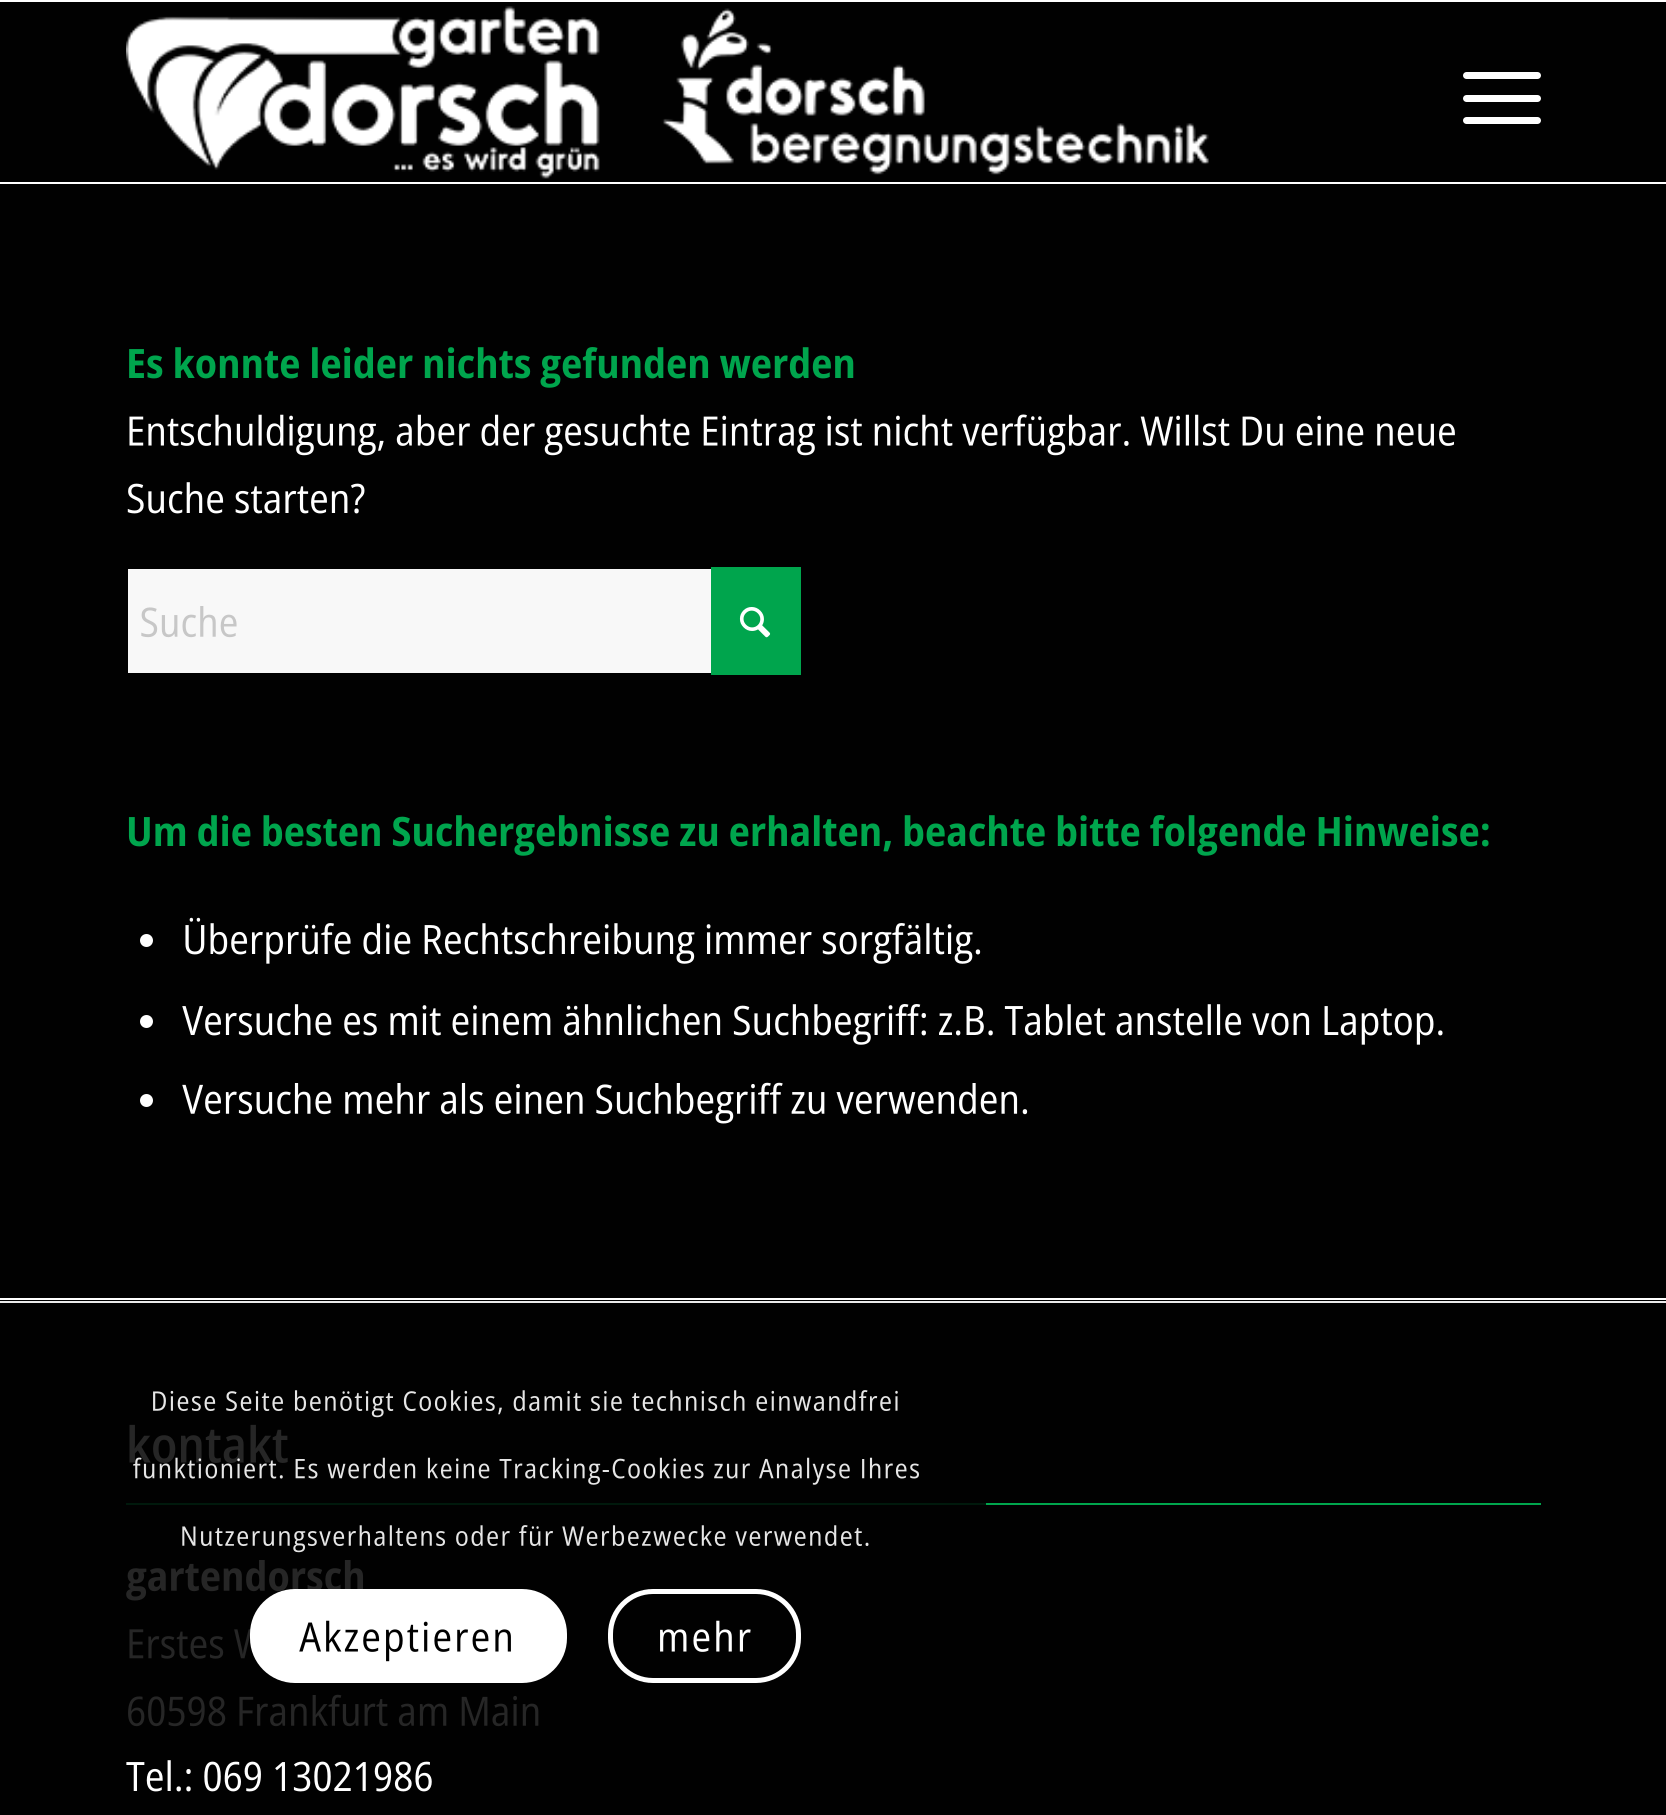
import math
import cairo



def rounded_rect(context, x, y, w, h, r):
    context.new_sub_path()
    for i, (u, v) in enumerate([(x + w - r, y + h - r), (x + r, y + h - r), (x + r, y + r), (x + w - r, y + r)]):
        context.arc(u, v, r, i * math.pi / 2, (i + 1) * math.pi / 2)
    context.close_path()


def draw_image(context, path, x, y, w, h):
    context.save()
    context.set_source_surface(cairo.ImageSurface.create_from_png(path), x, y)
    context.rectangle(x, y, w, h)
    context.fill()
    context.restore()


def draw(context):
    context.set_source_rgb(1 / 255, 1 / 255, 1 / 255)
    context.paint()
    context.set_source_rgb(1, 1, 1)
    context.rectangle(0, 0, 1666, 2)
    context.fill()
    context.rectangle(0, 182, 1666, 2)
    context.fill()
    draw_image(context, "images/1.png", 126, 6, 1083, 173)
    rounded_rect(context, 1463, 95, 78, 7, 3.5)
    context.fill()
    rounded_rect(context, 1463, 72, 78, 7, 3.5)
    context.fill()
    rounded_rect(context, 1463, 117, 78, 7, 3.5)
    context.fill()
    draw_image(context, "images/2.png", 129, 347, 725, 41)
    draw_image(context, "images/3.png", 129, 414, 1326, 42)
    draw_image(context, "images/4.png", 127, 482, 238, 32)
    context.set_source_rgb(248 / 255, 248 / 255, 248 / 255)
    context.rectangle(128, 569, 583, 104)
    context.fill()
    draw_image(context, "images/5.png", 141, 606, 96, 32)
    context.set_source_rgb(0, 165 / 255, 77 / 255)
    context.rectangle(711, 567, 90, 108)
    context.fill()
    draw_image(context, "images/6.png", 739, 607, 32, 31)
    draw_image(context, "images/7.png", 128, 815, 1361, 41)
    context.set_source_rgb(1, 1, 1)
    context.arc(146.5, 940.5, 6.5, 0, 2 * math.pi)
    context.fill()
    draw_image(context, "images/8.png", 185, 917, 796, 47)
    context.arc(146.5, 1021.5, 6.5, 0, 2 * math.pi)
    context.fill()
    draw_image(context, "images/9.png", 182, 1004, 1261, 41)
    context.arc(146.5, 1100.5, 6.5, 0, 2 * math.pi)
    context.fill()
    draw_image(context, "images/10.png", 182, 1082, 846, 42)
    context.rectangle(0, 1298, 1666, 2)
    context.fill()
    context.set_source_rgb(235 / 255, 235 / 255, 235 / 255)
    context.rectangle(0, 1301, 1666, 2)
    context.fill()
    draw_image(context, "images/11.png", 129, 1424, 159, 39)
    context.set_source_rgb(0, 165 / 255, 77 / 255)
    context.rectangle(986, 1503, 555, 2)
    context.fill()
    context.set_source_rgb(0, 25 / 255, 12 / 255)
    context.rectangle(126, 1503, 860, 2)
    context.fill()
    draw_image(context, "images/12.png", 126, 1560, 238, 41)
    draw_image(context, "images/13.png", 129, 1629, 122, 30)
    draw_image(context, "images/14.png", 128, 1694, 411, 33)
    draw_image(context, "images/15.png", 126, 1760, 306, 32)
    draw_image(context, "images/16.png", 153, 1390, 745, 28)
    draw_image(context, "images/17.png", 133, 1457, 786, 28)
    draw_image(context, "images/18.png", 182, 1525, 687, 28)
    context.set_source_rgb(1, 1, 1)
    rounded_rect(context, 250, 1589, 317, 94, 45)
    context.fill()
    draw_image(context, "images/19.png", 299, 1620, 212, 42)
    rounded_rect(context, 610.5, 1591.5, 188, 89, 42.5)
    context.set_line_width(5)
    context.stroke()
    draw_image(context, "images/20.png", 660, 1620, 91, 32)


surface = cairo.ImageSurface(cairo.Format.RGB24, 1666, 1815)
context = cairo.Context(surface)
options = cairo.FontOptions()
options.set_hint_metrics(cairo.HintMetrics.OFF)
options.set_hint_style(cairo.HintStyle.NONE)
context.set_font_options(options)
context.set_miter_limit(4)
draw(context)
surface.write_to_png("out.png")
